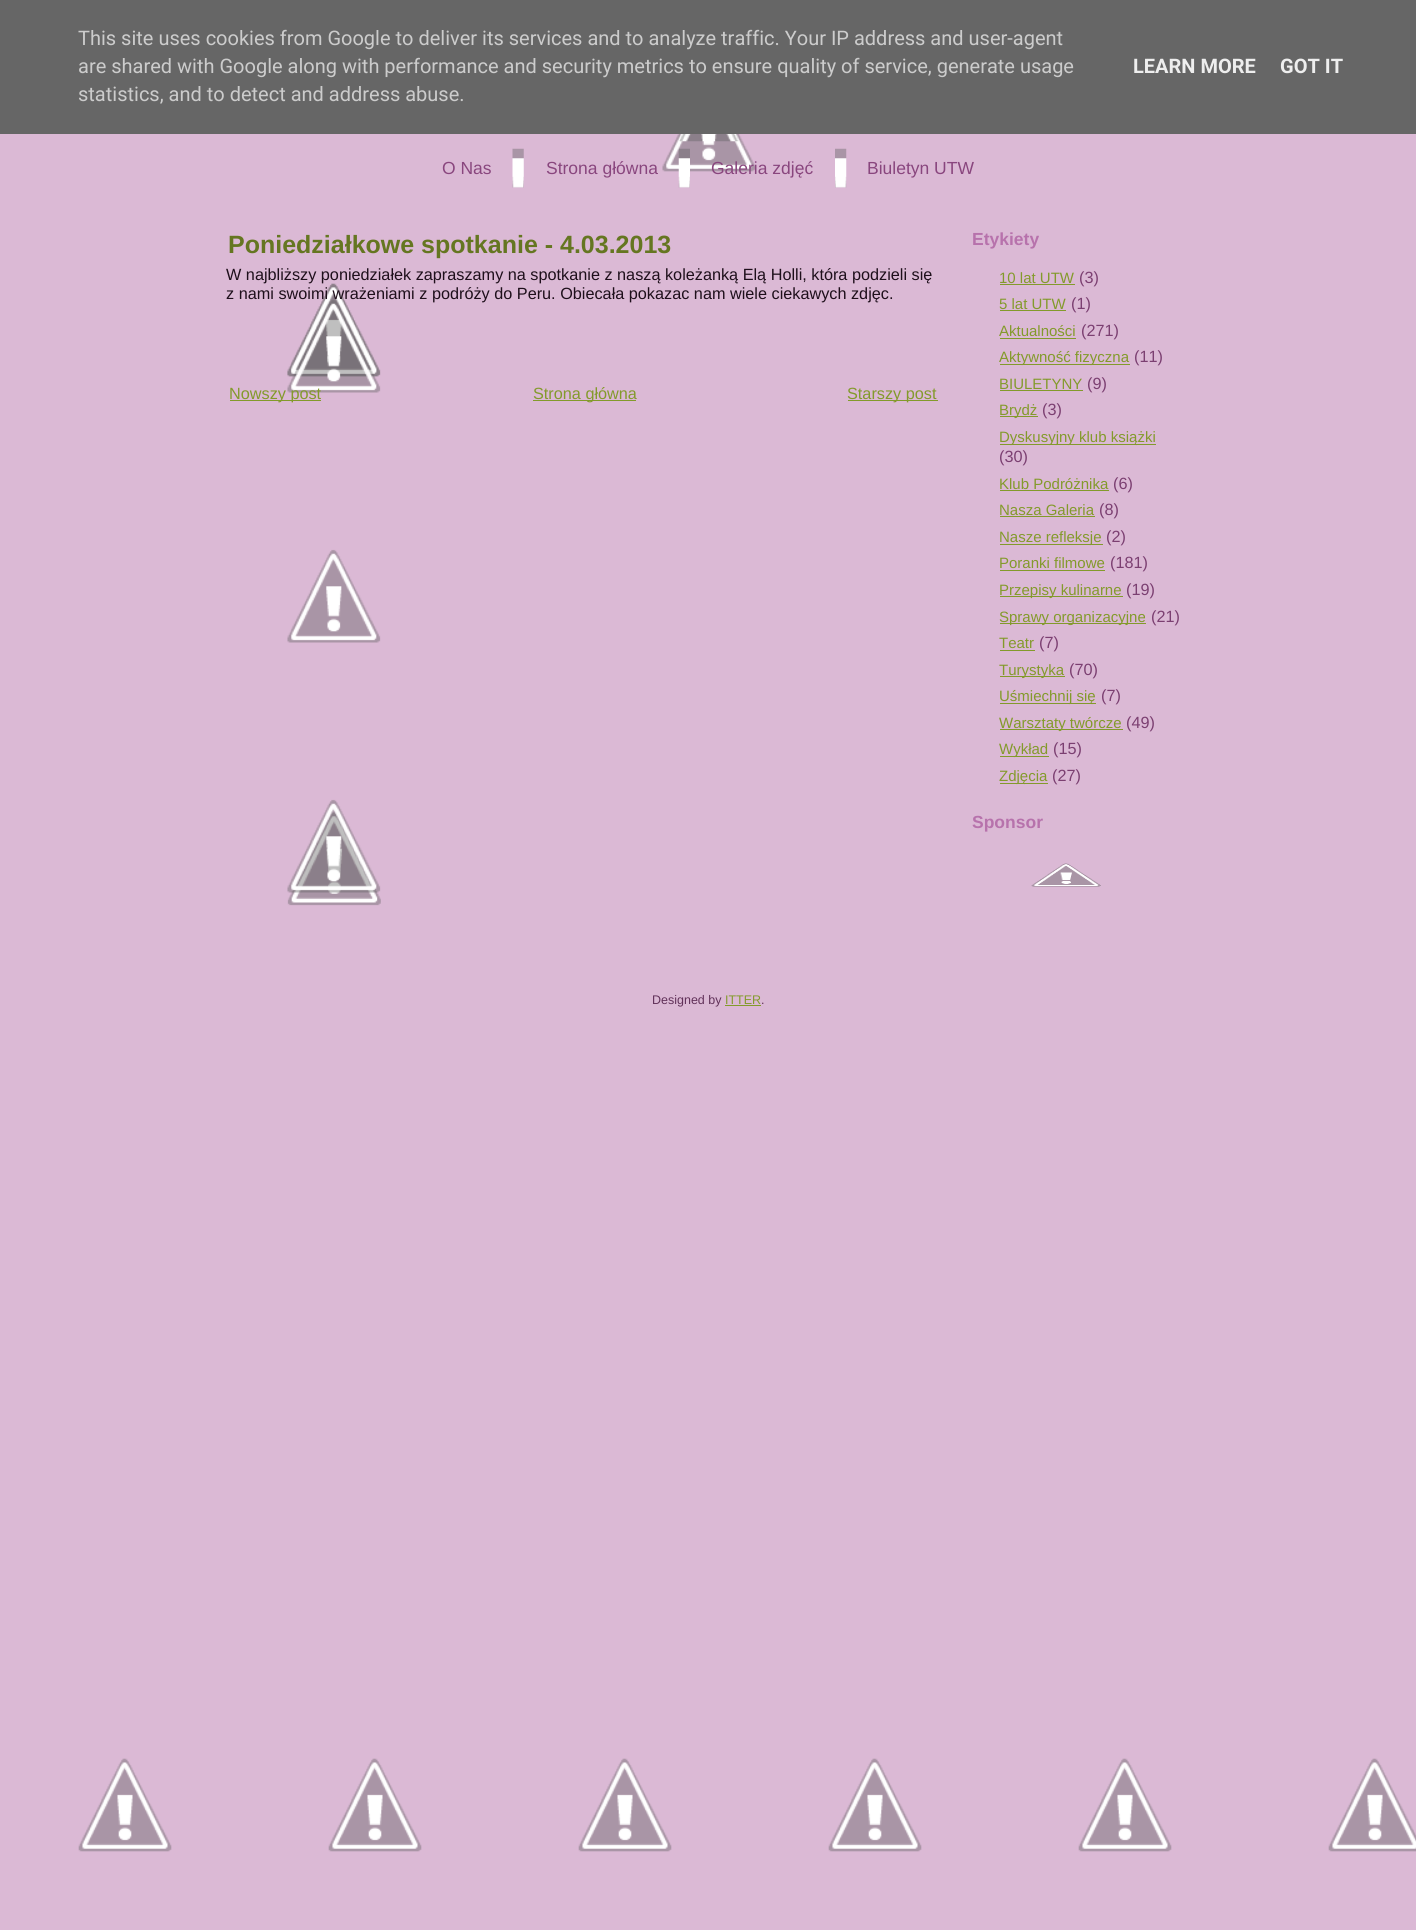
import math
import cairo



def draw_image(context, path, x, y, w, h):
    context.save()
    context.set_source_surface(cairo.ImageSurface.create_from_png(path), x, y)
    context.rectangle(x, y, w, h)
    context.fill()
    context.restore()


def draw(context):
    context.set_source_rgb(219 / 255, 185 / 255, 213 / 255)
    context.paint()
    draw_image(context, "images/1.png", 78, 1758, 1338, 94)
    context.set_source_rgb(102 / 255, 102 / 255, 102 / 255)
    context.rectangle(0, 0, 1416, 134)
    context.fill()
    draw_image(context, "images/2.png", 662, 134, 94, 38)
    draw_image(context, "images/3.png", 679, 134, 60, 8)
    draw_image(context, "images/4.png", 512, 148, 12, 40)
    draw_image(context, "images/5.png", 678, 148, 12, 40)
    draw_image(context, "images/6.png", 835, 148, 12, 40)
    draw_image(context, "images/9.png", 287, 283, 94, 623)
    draw_image(context, "images/10.png", 287, 283, 94, 94)
    draw_image(context, "images/8.png", 287, 300, 94, 593)
    context.set_source_rgb(131 / 255, 154 / 255, 43 / 255)
    context.rectangle(230, 400, 91, 1)
    context.fill()
    context.rectangle(533, 400, 103, 1)
    context.fill()
    context.rectangle(848, 400, 90, 1)
    context.fill()
    context.rectangle(1000, 284, 75, 1)
    context.fill()
    context.rectangle(1000, 310, 66, 1)
    context.fill()
    context.rectangle(1000, 338, 76, 1)
    context.fill()
    context.rectangle(1000, 364, 130, 1)
    context.fill()
    context.rectangle(1000, 390, 83, 1)
    context.fill()
    context.rectangle(1000, 416, 38, 1)
    context.fill()
    context.rectangle(1000, 444, 156, 1)
    context.fill()
    context.rectangle(1000, 490, 109, 1)
    context.fill()
    context.rectangle(1000, 516, 95, 1)
    context.fill()
    context.rectangle(1000, 544, 103, 1)
    context.fill()
    context.rectangle(1000, 570, 105, 1)
    context.fill()
    context.rectangle(1000, 596, 123, 1)
    context.fill()
    context.rectangle(1000, 623, 146, 1)
    context.fill()
    context.rectangle(1000, 650, 35, 1)
    context.fill()
    context.rectangle(1000, 676, 65, 1)
    context.fill()
    context.rectangle(1000, 703, 96, 1)
    context.fill()
    context.rectangle(1000, 729, 123, 1)
    context.fill()
    context.rectangle(1000, 756, 49, 1)
    context.fill()
    context.rectangle(1000, 783, 48, 1)
    context.fill()
    draw_image(context, "images/7.png", 1031, 863, 70, 24)
    context.rectangle(725, 1005, 36, 1)
    context.fill()
    context.select_font_face("Roboto")
    context.set_font_size(20)
    context.set_source_rgb(204 / 255, 204 / 255, 204 / 255)
    context.move_to(78, 45)
    context.show_text("This site uses cookies from Google to deliver its services and to analyze traffic. Your IP address and user-agent")
    context.move_to(78, 73)
    context.show_text("are shared with Google along with performance and security metrics to ensure quality of service, generate usage")
    context.move_to(78, 101)
    context.show_text("statistics, and to detect and address abuse.")
    context.select_font_face("Roboto", cairo.FontSlant.NORMAL, cairo.FontWeight.BOLD)
    context.set_source_rgb(238 / 255, 238 / 255, 238 / 255)
    context.move_to(1133, 73)
    context.show_text("LEARN MORE")
    context.move_to(1280, 73)
    context.show_text("GOT IT")
    context.select_font_face("Liberation Sans")
    context.set_font_size(17.5)
    context.set_source_rgb(137 / 255, 70 / 255, 126 / 255)
    context.move_to(442, 174)
    context.show_text("O Nas")
    context.move_to(546, 174)
    context.show_text("Strona główna")
    context.move_to(711, 174)
    context.show_text("Galeria zdjęć")
    context.move_to(867, 174)
    context.show_text("Biuletyn UTW")
    context.select_font_face("Liberation Sans", cairo.FontSlant.NORMAL, cairo.FontWeight.BOLD)
    context.set_font_size(25)
    context.set_source_rgb(101 / 255, 118 / 255, 33 / 255)
    context.move_to(228, 253)
    context.show_text("Poniedziałkowe spotkanie - 4.03.2013")
    context.select_font_face("Liberation Sans")
    context.set_font_size(16.25)
    context.set_source_rgb(30 / 255, 15 / 255, 27 / 255)
    context.move_to(226, 280)
    context.show_text("W najbliższy poniedziałek zapraszamy na spotkanie z naszą koleżanką Elą Holli, która podzieli się")
    context.move_to(226, 299)
    context.show_text("z nami swoimi wrażeniami z podróży do Peru. Obiecała pokazac nam wiele ciekawych zdjęc.")
    context.set_source_rgb(131 / 255, 154 / 255, 43 / 255)
    context.move_to(229, 399)
    context.show_text("Nowszy post")
    context.move_to(533, 399)
    context.show_text("Strona główna")
    context.move_to(847, 399)
    context.show_text("Starszy post")
    context.select_font_face("Liberation Sans", cairo.FontSlant.NORMAL, cairo.FontWeight.BOLD)
    context.set_font_size(17.5)
    context.set_source_rgb(183 / 255, 114 / 255, 172 / 255)
    context.move_to(972, 245)
    context.show_text("Etykiety")
    context.select_font_face("Liberation Sans")
    context.set_font_size(15)
    context.set_source_rgb(131 / 255, 154 / 255, 43 / 255)
    context.move_to(999, 283)
    context.show_text("10 lat UTW")
    context.set_font_size(16.25)
    context.set_source_rgb(123 / 255, 63 / 255, 113 / 255)
    context.move_to(1079, 283)
    context.show_text("(3)")
    context.set_font_size(15)
    context.set_source_rgb(131 / 255, 154 / 255, 43 / 255)
    context.move_to(999, 309)
    context.show_text("5 lat UTW")
    context.set_font_size(16.25)
    context.set_source_rgb(123 / 255, 63 / 255, 113 / 255)
    context.move_to(1071, 309)
    context.show_text("(1)")
    context.set_font_size(15)
    context.set_source_rgb(131 / 255, 154 / 255, 43 / 255)
    context.move_to(999, 336)
    context.show_text("Aktualności")
    context.set_font_size(16.25)
    context.set_source_rgb(123 / 255, 63 / 255, 113 / 255)
    context.move_to(1081, 336)
    context.show_text("(271)")
    context.set_font_size(15)
    context.set_source_rgb(131 / 255, 154 / 255, 43 / 255)
    context.move_to(999, 362)
    context.show_text("Aktywność fizyczna")
    context.set_font_size(16.25)
    context.set_source_rgb(123 / 255, 63 / 255, 113 / 255)
    context.move_to(1134, 362)
    context.show_text("(11)")
    context.set_font_size(15)
    context.set_source_rgb(131 / 255, 154 / 255, 43 / 255)
    context.move_to(999, 389)
    context.show_text("BIULETYNY")
    context.set_font_size(16.25)
    context.set_source_rgb(123 / 255, 63 / 255, 113 / 255)
    context.move_to(1087, 389)
    context.show_text("(9)")
    context.set_font_size(15)
    context.set_source_rgb(131 / 255, 154 / 255, 43 / 255)
    context.move_to(999, 415)
    context.show_text("Brydż")
    context.set_font_size(16.25)
    context.set_source_rgb(123 / 255, 63 / 255, 113 / 255)
    context.move_to(1042, 415)
    context.show_text("(3)")
    context.set_font_size(15)
    context.set_source_rgb(131 / 255, 154 / 255, 43 / 255)
    context.move_to(999, 442)
    context.show_text("Dyskusyjny klub książki")
    context.set_font_size(16.25)
    context.set_source_rgb(123 / 255, 63 / 255, 113 / 255)
    context.move_to(999, 462)
    context.show_text("(30)")
    context.set_font_size(15)
    context.set_source_rgb(131 / 255, 154 / 255, 43 / 255)
    context.move_to(999, 489)
    context.show_text("Klub Podróżnika")
    context.set_font_size(16.25)
    context.set_source_rgb(123 / 255, 63 / 255, 113 / 255)
    context.move_to(1113, 489)
    context.show_text("(6)")
    context.set_font_size(15)
    context.set_source_rgb(131 / 255, 154 / 255, 43 / 255)
    context.move_to(999, 515)
    context.show_text("Nasza Galeria")
    context.set_font_size(16.25)
    context.set_source_rgb(123 / 255, 63 / 255, 113 / 255)
    context.move_to(1099, 515)
    context.show_text("(8)")
    context.set_font_size(15)
    context.set_source_rgb(131 / 255, 154 / 255, 43 / 255)
    context.move_to(999, 542)
    context.show_text("Nasze refleksje")
    context.set_font_size(16.25)
    context.set_source_rgb(123 / 255, 63 / 255, 113 / 255)
    context.move_to(1106, 542)
    context.show_text("(2)")
    context.set_font_size(15)
    context.set_source_rgb(131 / 255, 154 / 255, 43 / 255)
    context.move_to(999, 568)
    context.show_text("Poranki filmowe")
    context.set_font_size(16.25)
    context.set_source_rgb(123 / 255, 63 / 255, 113 / 255)
    context.move_to(1110, 568)
    context.show_text("(181)")
    context.set_font_size(15)
    context.set_source_rgb(131 / 255, 154 / 255, 43 / 255)
    context.move_to(999, 595)
    context.show_text("Przepisy kulinarne")
    context.set_font_size(16.25)
    context.set_source_rgb(123 / 255, 63 / 255, 113 / 255)
    context.move_to(1126, 595)
    context.show_text("(19)")
    context.set_font_size(15)
    context.set_source_rgb(131 / 255, 154 / 255, 43 / 255)
    context.move_to(999, 622)
    context.show_text("Sprawy organizacyjne")
    context.set_font_size(16.25)
    context.set_source_rgb(123 / 255, 63 / 255, 113 / 255)
    context.move_to(1151, 622)
    context.show_text("(21)")
    context.set_font_size(15)
    context.set_source_rgb(131 / 255, 154 / 255, 43 / 255)
    context.move_to(999, 648)
    context.show_text("Teatr")
    context.set_font_size(16.25)
    context.set_source_rgb(123 / 255, 63 / 255, 113 / 255)
    context.move_to(1039, 648)
    context.show_text("(7)")
    context.set_font_size(15)
    context.set_source_rgb(131 / 255, 154 / 255, 43 / 255)
    context.move_to(999, 675)
    context.show_text("Turystyka")
    context.set_font_size(16.25)
    context.set_source_rgb(123 / 255, 63 / 255, 113 / 255)
    context.move_to(1069, 675)
    context.show_text("(70)")
    context.set_font_size(15)
    context.set_source_rgb(131 / 255, 154 / 255, 43 / 255)
    context.move_to(999, 701)
    context.show_text("Uśmiechnij się")
    context.set_font_size(16.25)
    context.set_source_rgb(123 / 255, 63 / 255, 113 / 255)
    context.move_to(1101, 701)
    context.show_text("(7)")
    context.set_font_size(15)
    context.set_source_rgb(131 / 255, 154 / 255, 43 / 255)
    context.move_to(999, 728)
    context.show_text("Warsztaty twórcze")
    context.set_font_size(16.25)
    context.set_source_rgb(123 / 255, 63 / 255, 113 / 255)
    context.move_to(1126, 728)
    context.show_text("(49)")
    context.set_font_size(15)
    context.set_source_rgb(131 / 255, 154 / 255, 43 / 255)
    context.move_to(999, 754)
    context.show_text("Wykład")
    context.set_font_size(16.25)
    context.set_source_rgb(123 / 255, 63 / 255, 113 / 255)
    context.move_to(1053, 754)
    context.show_text("(15)")
    context.set_font_size(15)
    context.set_source_rgb(131 / 255, 154 / 255, 43 / 255)
    context.move_to(999, 781)
    context.show_text("Zdjęcia")
    context.set_font_size(16.25)
    context.set_source_rgb(123 / 255, 63 / 255, 113 / 255)
    context.move_to(1052, 781)
    context.show_text("(27)")
    context.select_font_face("Liberation Sans", cairo.FontSlant.NORMAL, cairo.FontWeight.BOLD)
    context.set_font_size(17.5)
    context.set_source_rgb(183 / 255, 114 / 255, 172 / 255)
    context.move_to(972, 828)
    context.show_text("Sponsor")
    context.select_font_face("Liberation Sans")
    context.set_font_size(12.5)
    context.set_source_rgb(97 / 255, 49 / 255, 89 / 255)
    context.move_to(652, 1004)
    context.show_text("Designed by")
    context.set_source_rgb(131 / 255, 154 / 255, 43 / 255)
    context.move_to(725, 1004)
    context.show_text("ITTER")
    context.set_source_rgb(97 / 255, 49 / 255, 89 / 255)
    context.move_to(761, 1004)
    context.show_text(".")


surface = cairo.ImageSurface(cairo.Format.RGB24, 1416, 1930)
context = cairo.Context(surface)
options = cairo.FontOptions()
options.set_hint_metrics(cairo.HintMetrics.OFF)
options.set_hint_style(cairo.HintStyle.NONE)
context.set_font_options(options)
context.set_miter_limit(4)
draw(context)
surface.write_to_png("out.png")
